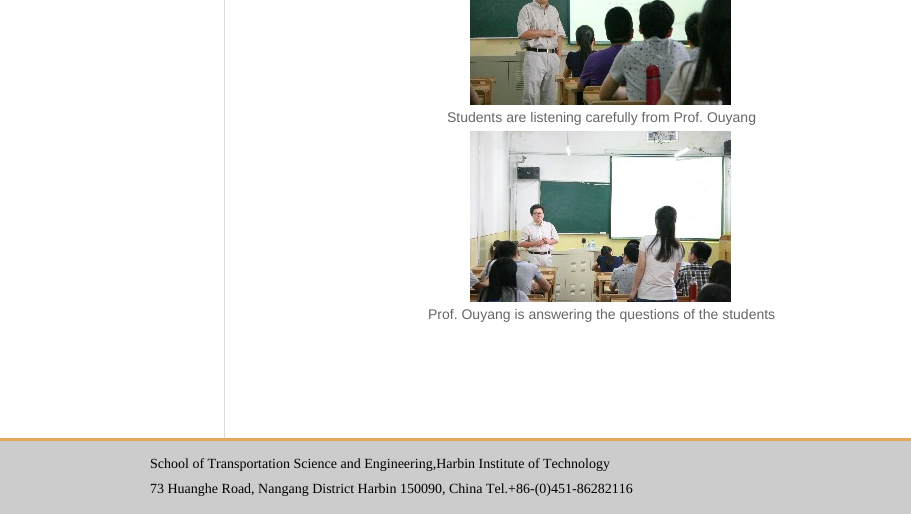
import math
import cairo



def draw_image(context, path, x, y, w, h):
    context.save()
    context.set_source_surface(cairo.ImageSurface.create_from_png(path), x, y)
    context.rectangle(x, y, w, h)
    context.fill()
    context.restore()


def draw(context):
    context.set_source_rgb(1, 1, 1)
    context.paint()
    context.set_source_rgb(221 / 255, 221 / 255, 221 / 255)
    context.rectangle(224, 0, 1, 439)
    context.fill()
    draw_image(context, "images/1.png", 469, 0, 262, 105)
    draw_image(context, "images/2.png", 470, 130, 261, 172)
    draw_image(context, "images/3.png", 0, 438, 911, 76)
    context.select_font_face("Liberation Sans")
    context.set_font_size(14)
    context.set_source_rgb(102 / 255, 102 / 255, 102 / 255)
    context.move_to(447, 122)
    context.show_text("Students are listening carefully from Prof. Ouyang")
    context.move_to(428, 319)
    context.show_text("Prof. Ouyang is answering the questions of the students")
    context.select_font_face("Liberation Serif")
    context.set_source_rgb(0, 0, 0)
    context.move_to(150, 468)
    context.show_text("School of Transportation Science and Engineering,Harbin Institute of Technology")
    context.move_to(150, 493)
    context.show_text("73 Huanghe Road, Nangang District Harbin 150090, China Tel.+86-(0)451-86282116")


surface = cairo.ImageSurface(cairo.Format.RGB24, 911, 514)
context = cairo.Context(surface)
options = cairo.FontOptions()
options.set_hint_metrics(cairo.HintMetrics.OFF)
options.set_hint_style(cairo.HintStyle.NONE)
context.set_font_options(options)
context.set_miter_limit(4)
draw(context)
surface.write_to_png("out.png")
